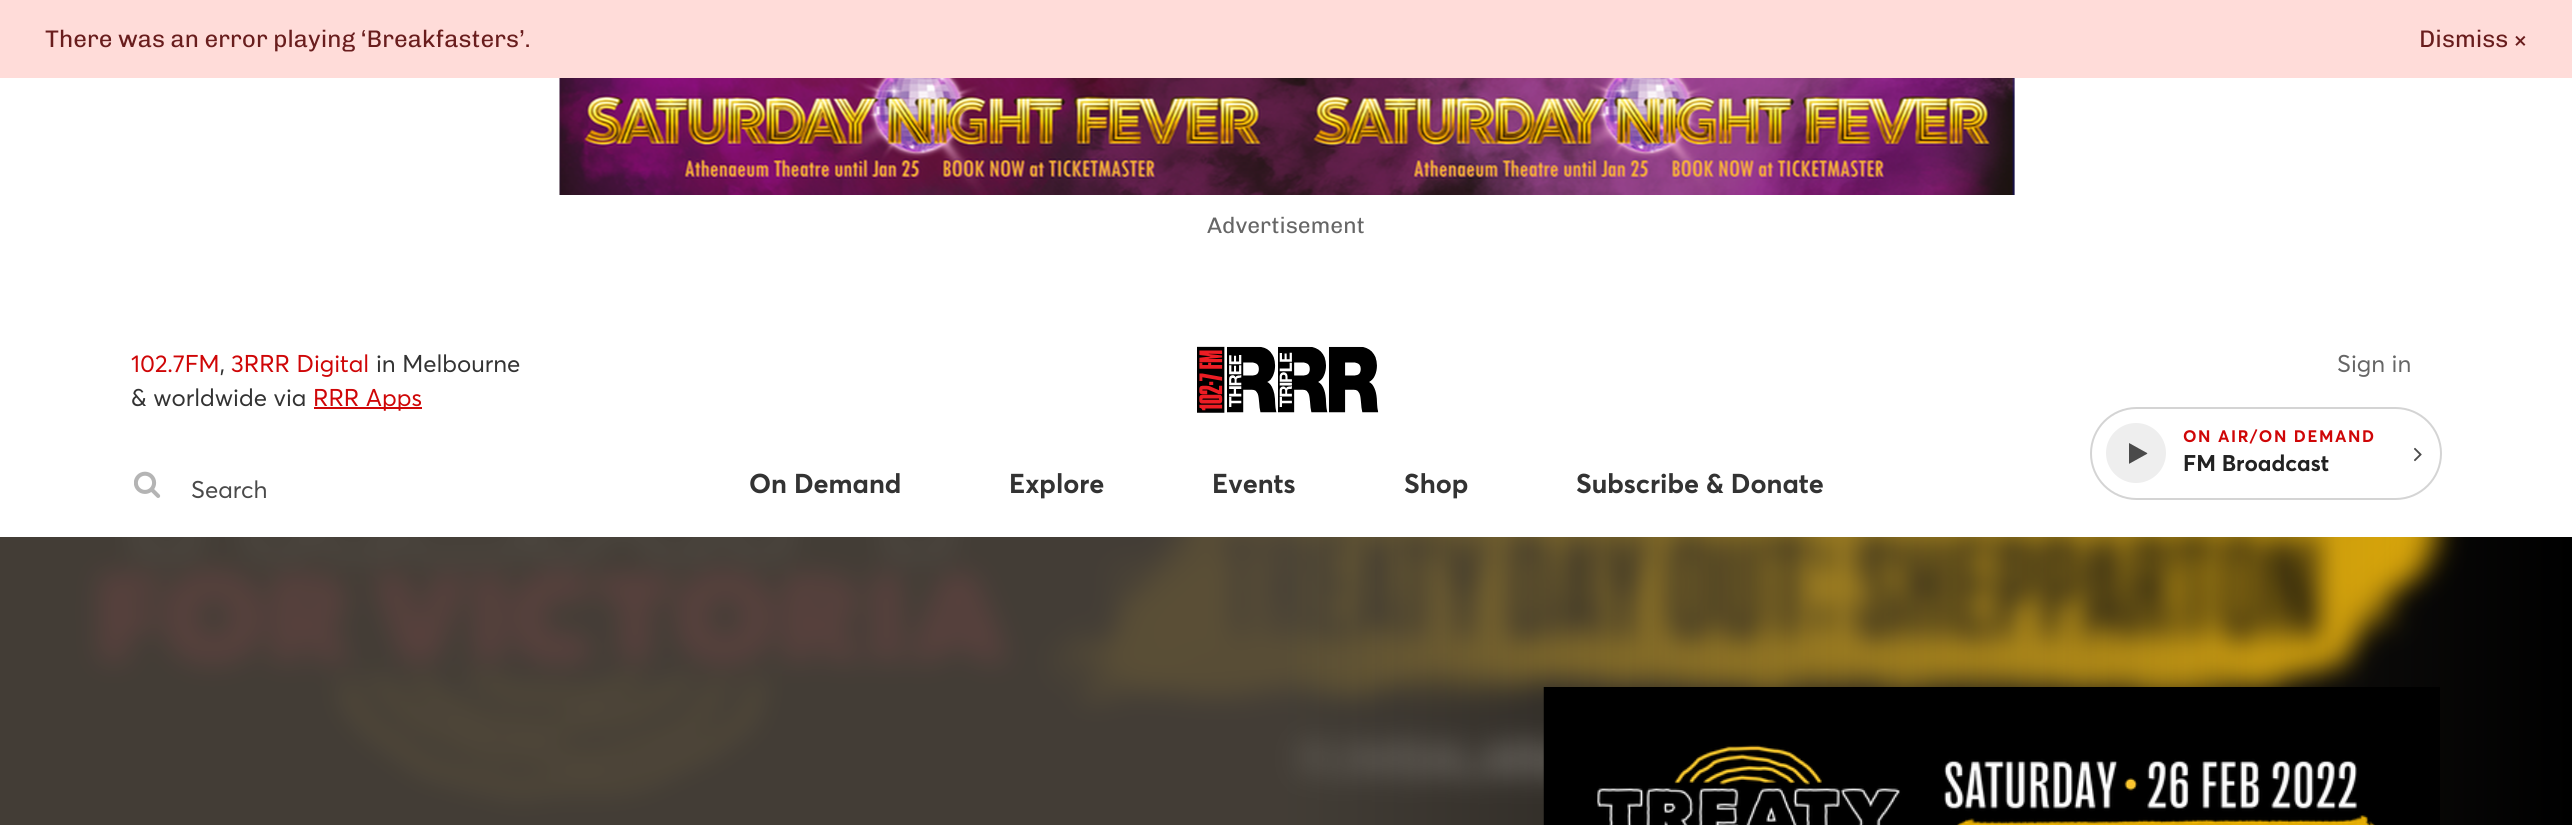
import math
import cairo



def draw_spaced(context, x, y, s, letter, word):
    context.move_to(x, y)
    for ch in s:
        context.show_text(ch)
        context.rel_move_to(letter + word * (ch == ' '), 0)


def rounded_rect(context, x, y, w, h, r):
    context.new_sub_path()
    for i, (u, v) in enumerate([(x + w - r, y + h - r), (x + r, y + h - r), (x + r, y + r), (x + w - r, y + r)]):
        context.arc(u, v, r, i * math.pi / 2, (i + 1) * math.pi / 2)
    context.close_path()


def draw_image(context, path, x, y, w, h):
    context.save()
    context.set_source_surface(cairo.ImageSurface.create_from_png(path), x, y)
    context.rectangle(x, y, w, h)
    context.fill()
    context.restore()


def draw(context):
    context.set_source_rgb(1, 1, 1)
    context.paint()
    context.set_source_rgb(1, 220 / 255, 217 / 255)
    context.rectangle(0, 0, 2572, 78)
    context.fill()
    context.set_source_rgb(204 / 255, 204 / 255, 204 / 255)
    context.rectangle(2014, 78, 1, 117)
    context.fill()
    draw_image(context, "images/1.png", 559, 78, 1456, 117)
    context.set_source_rgb(207 / 255, 6 / 255, 7 / 255)
    context.rectangle(314, 407, 108, 2)
    context.fill()
    draw_image(context, "images/2.png", 134, 471, 27, 27)
    draw_image(context, "images/3.png", 1197, 346, 182, 67)
    rounded_rect(context, 2091, 408, 350, 91, 45.5)
    context.set_source_rgb(212 / 255, 212 / 255, 212 / 255)
    context.stroke()
    context.set_source_rgb(238 / 255, 238 / 255, 238 / 255)
    context.arc(2136, 453, 29, 0, 2 * math.pi)
    context.fill_preserve()
    context.stroke()
    draw_image(context, "images/4.png", 2129, 443, 19, 21)
    draw_image(context, "images/5.png", 2414, 447, 8, 15)
    draw_image(context, "images/6.png", 0, 537, 2572, 288)
    draw_image(context, "images/7.png", 1543, 687, 897, 138)
    context.select_font_face("Chivo")
    context.set_font_size(24)
    context.set_source_rgb(105 / 255, 29 / 255, 29 / 255)
    context.move_to(45, 47)
    context.show_text("There was an error playing ‘Breakfasters’.")
    context.move_to(2419, 47)
    context.show_text("Dismiss")
    context.move_to(2513, 47)
    context.show_text("×")
    context.set_font_size(22.5)
    context.set_source_rgb(102 / 255, 102 / 255, 102 / 255)
    context.move_to(1207, 233)
    context.show_text("Advertisement")
    context.select_font_face("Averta")
    context.set_font_size(24)
    context.set_source_rgb(207 / 255, 6 / 255, 7 / 255)
    context.move_to(131, 372)
    context.show_text("102.7FM")
    context.set_source_rgb(51 / 255, 51 / 255, 51 / 255)
    context.move_to(220, 372)
    context.show_text(",")
    context.set_source_rgb(207 / 255, 6 / 255, 7 / 255)
    context.move_to(231, 372)
    context.show_text("3RRR Digital")
    context.set_source_rgb(51 / 255, 51 / 255, 51 / 255)
    context.move_to(376, 372)
    context.show_text("in Melbourne")
    context.move_to(131, 406)
    context.show_text("& worldwide via")
    context.set_source_rgb(207 / 255, 6 / 255, 7 / 255)
    context.move_to(313, 406)
    context.show_text("RRR Apps")
    context.set_source_rgb(74 / 255, 74 / 255, 74 / 255)
    context.move_to(191, 498)
    context.show_text("Search")
    context.set_source_rgb(102 / 255, 102 / 255, 102 / 255)
    context.move_to(2337, 372)
    context.show_text("Sign in")
    context.select_font_face("Averta", cairo.FontSlant.NORMAL, cairo.FontWeight.BOLD)
    context.set_font_size(16.5)
    context.set_source_rgb(207 / 255, 6 / 255, 7 / 255)
    draw_spaced(context, 2183, 442, "ON AIR/ON DEMAND", 1.6, 0)
    context.set_font_size(22.5)
    context.set_source_rgb(34 / 255, 34 / 255, 34 / 255)
    context.move_to(2183, 471)
    context.show_text("FM Broadcast")
    context.set_font_size(27)
    context.set_source_rgb(51 / 255, 51 / 255, 51 / 255)
    context.move_to(749, 493)
    context.show_text("On Demand")
    context.move_to(1009, 493)
    context.show_text("Explore")
    context.move_to(1212, 493)
    context.show_text("Events")
    context.move_to(1404, 493)
    context.show_text("Shop")
    context.move_to(1576, 493)
    context.show_text("Subscribe & Donate")


surface = cairo.ImageSurface(cairo.Format.RGB24, 2572, 825)
context = cairo.Context(surface)
options = cairo.FontOptions()
options.set_hint_metrics(cairo.HintMetrics.OFF)
options.set_hint_style(cairo.HintStyle.NONE)
context.set_font_options(options)
context.set_miter_limit(4)
draw(context)
surface.write_to_png("out.png")
